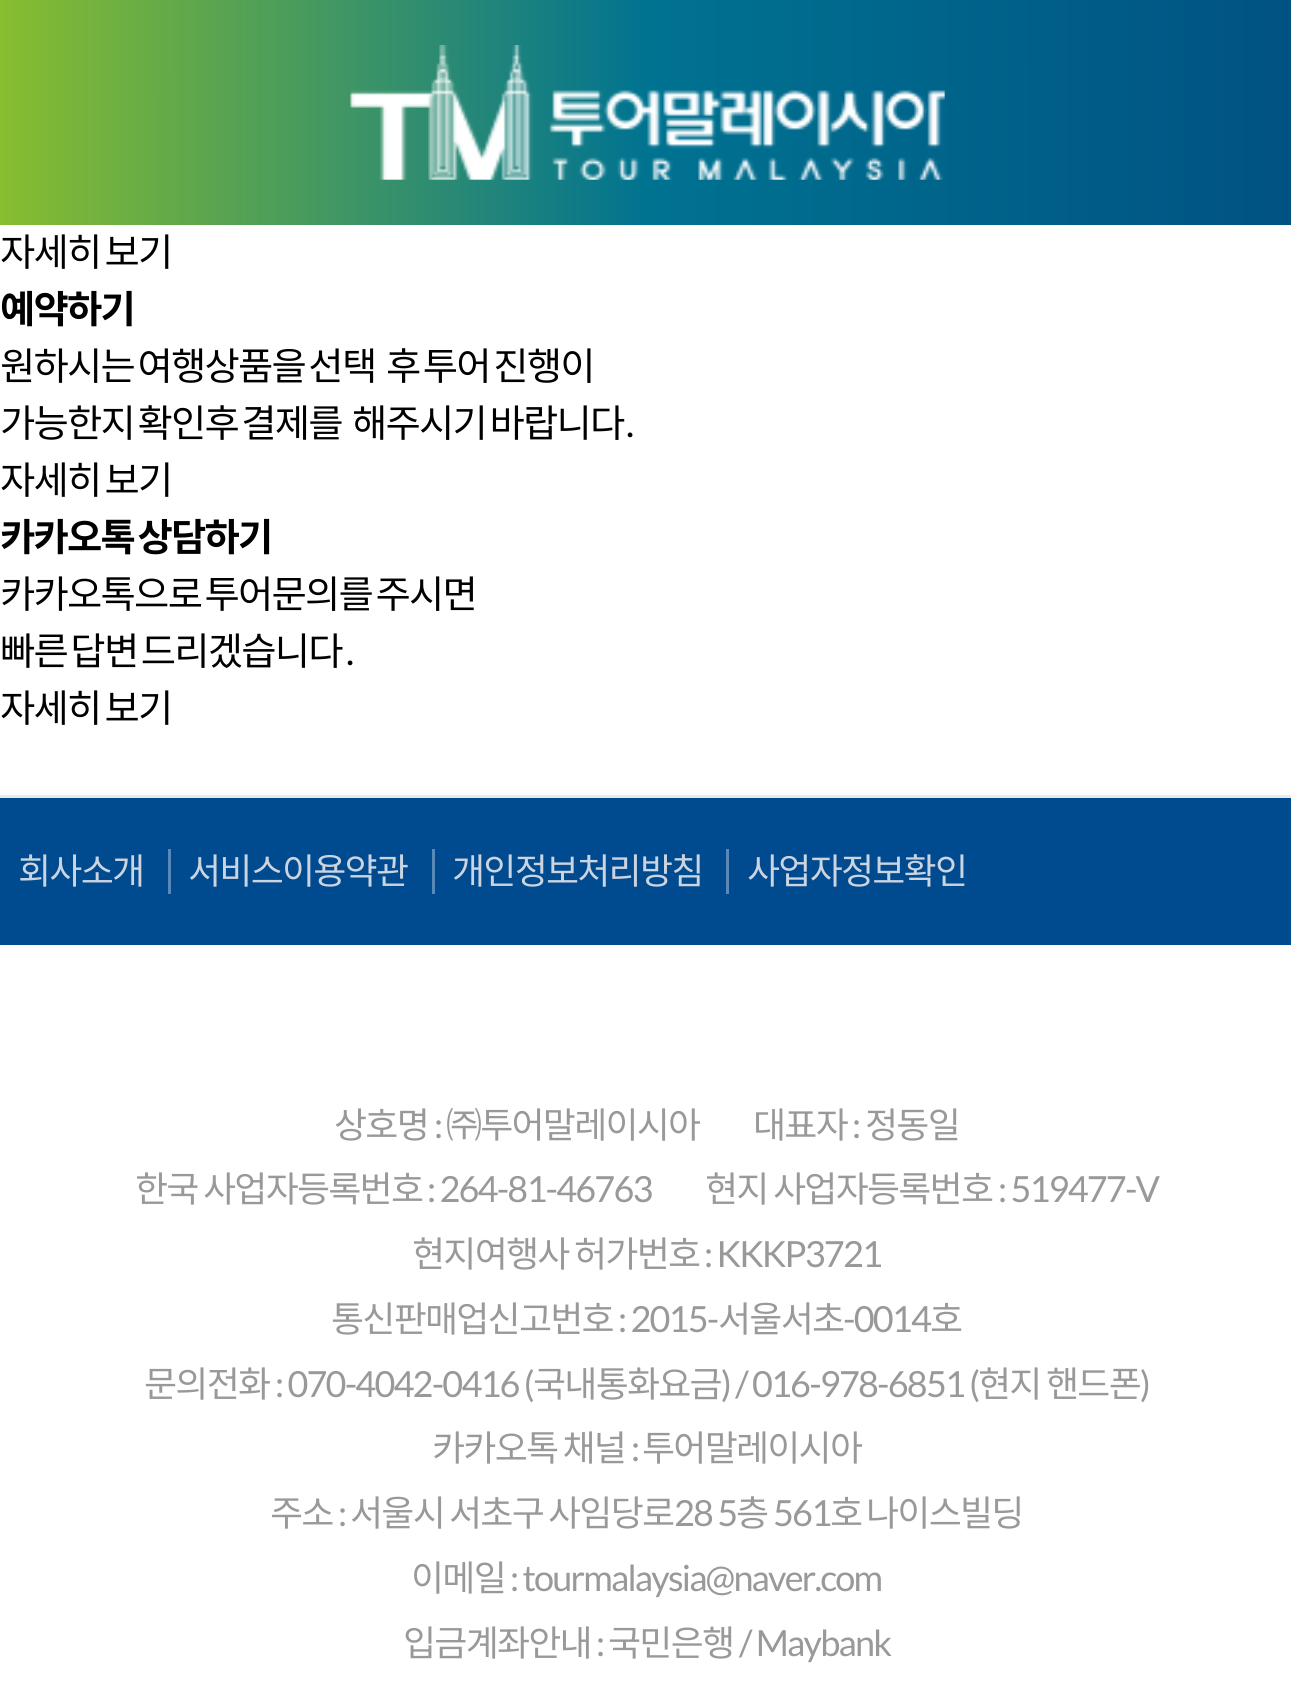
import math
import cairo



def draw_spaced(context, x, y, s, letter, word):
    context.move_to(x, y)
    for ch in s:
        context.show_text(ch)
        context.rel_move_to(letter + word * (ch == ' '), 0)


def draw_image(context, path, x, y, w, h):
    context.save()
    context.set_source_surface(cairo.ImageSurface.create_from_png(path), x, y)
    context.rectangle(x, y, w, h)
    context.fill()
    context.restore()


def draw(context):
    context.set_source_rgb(1, 1, 1)
    context.paint()
    gradient = cairo.LinearGradient(0, 113, 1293, 112)
    gradient.add_color_stop_rgba(0, 136 / 255, 189 / 255, 48 / 255, 1)
    gradient.add_color_stop_rgba(0.5, 0, 115 / 255, 145 / 255, 1)
    gradient.add_color_stop_rgba(1, 0, 82 / 255, 131 / 255, 1)
    context.set_source(gradient)
    context.rectangle(0, 0, 1291, 225)
    context.fill()
    draw_image(context, "images/1.png", 350, 45, 595, 135)
    context.set_source_rgb(234 / 255, 234 / 255, 234 / 255)
    context.rectangle(0, 795, 1291, 3)
    context.fill()
    context.set_source_rgb(0, 74 / 255, 143 / 255)
    context.rectangle(0, 798, 1291, 147)
    context.fill()
    context.set_source_rgb(89 / 255, 137 / 255, 182 / 255)
    context.rectangle(168, 849, 3, 45)
    context.fill()
    context.rectangle(432, 849, 3, 45)
    context.fill()
    context.rectangle(726, 849, 3, 45)
    context.fill()
    context.select_font_face("Noto Sans KR")
    context.set_font_size(38.4)
    context.set_source_rgb(0, 0, 0)
    draw_spaced(context, 0, 266, "자세히 보기", -1.8, -3)
    context.select_font_face("Noto Sans KR", cairo.FontSlant.NORMAL, cairo.FontWeight.BOLD)
    draw_spaced(context, 0, 323, "예약하기", -1.8, 0)
    context.select_font_face("Noto Sans KR")
    draw_spaced(context, 0, 380, "원하시는 여행상품을 선택", -1.8, -3.5)
    draw_spaced(context, 386, 380, "후 투어 진행이", -1.8, -3.5)
    draw_spaced(context, 0, 437, "가능한지 확인후 결제를", -1.8, -3.5)
    draw_spaced(context, 352, 437, "해주시기 바랍니다", -1.8, -3.5)
    context.select_font_face("Lato")
    draw_spaced(context, 626, 437, ".", -1.8, 0)
    context.select_font_face("Noto Sans KR")
    draw_spaced(context, 0, 494, "자세히 보기", -1.8, -3)
    context.select_font_face("Noto Sans KR", cairo.FontSlant.NORMAL, cairo.FontWeight.BOLD)
    draw_spaced(context, 0, 551, "카카오톡 상담하기", -1.8, -3.5)
    context.select_font_face("Noto Sans KR")
    draw_spaced(context, 0, 608, "카카오톡으로 투어문의를 주시면", -1.8, -3.5)
    draw_spaced(context, 0, 665, "빠른 답변 드리겠습니다", -1.8, -3.5)
    context.select_font_face("Lato")
    draw_spaced(context, 346, 665, ".", -1.8, 0)
    context.select_font_face("Noto Sans KR")
    draw_spaced(context, 0, 722, "자세히 보기", -1.8, -3)
    context.set_font_size(36)
    context.set_source_rgb(203 / 255, 212 / 255, 225 / 255)
    draw_spaced(context, 18, 884, "회사소개", -1.8, 0)
    draw_spaced(context, 188, 884, "서비스이용약관", -1.8, 0)
    draw_spaced(context, 452, 884, "개인정보처리방침", -1.8, 0)
    draw_spaced(context, 747, 884, "사업자정보확인", -1.8, 0)
    context.set_source_rgb(153 / 255, 153 / 255, 153 / 255)
    draw_spaced(context, 334, 1138, "상호명", -1.8, 0)
    context.select_font_face("Lato")
    draw_spaced(context, 434, 1138, ":", -1.8, 0)
    context.select_font_face("Noto Sans KR")
    draw_spaced(context, 446, 1138, "㈜투어말레이시아", -1.8, 0)
    draw_spaced(context, 753, 1138, "대표자", -1.8, 0)
    context.select_font_face("Lato")
    draw_spaced(context, 852, 1138, ":", -1.8, 0)
    context.select_font_face("Noto Sans KR")
    draw_spaced(context, 865, 1138, "정동일", -1.8, 0)
    draw_spaced(context, 135, 1202, "한국", -1.8, 0)
    draw_spaced(context, 203, 1202, "사업자등록번호", -1.8, 0)
    context.select_font_face("Lato")
    draw_spaced(context, 427, 1202, ": 264-81-46763", -1.8, 0)
    context.select_font_face("Noto Sans KR")
    draw_spaced(context, 705, 1202, "현지", -1.8, 0)
    draw_spaced(context, 773, 1202, "사업자등록번호", -1.8, 0)
    context.select_font_face("Lato")
    draw_spaced(context, 998, 1202, ": 519477-V", -1.8, 0)
    context.select_font_face("Noto Sans KR")
    draw_spaced(context, 412, 1267, "현지여행사", -1.8, 0)
    draw_spaced(context, 574, 1267, "허가번호", -1.8, 0)
    context.select_font_face("Lato")
    draw_spaced(context, 704, 1267, ": KKKP3721", -1.8, 0)
    context.select_font_face("Noto Sans KR")
    draw_spaced(context, 331, 1332, "통신판매업신고번호", -1.8, 0)
    context.select_font_face("Lato")
    draw_spaced(context, 618, 1332, ": 2015-", -1.8, 0)
    context.select_font_face("Noto Sans KR")
    draw_spaced(context, 718, 1332, "서울서초", -1.8, 0)
    context.select_font_face("Lato")
    draw_spaced(context, 843, 1332, "-0014", -1.8, 0)
    context.select_font_face("Noto Sans KR")
    draw_spaced(context, 930, 1332, "호", -1.8, 0)
    draw_spaced(context, 144, 1397, "문의전화", -1.8, 0)
    context.select_font_face("Lato")
    draw_spaced(context, 275, 1397, ": 070-4042-0416 (", -1.8, 0)
    context.select_font_face("Noto Sans KR")
    draw_spaced(context, 533, 1397, "국내통화요금", -1.8, 0)
    context.select_font_face("Lato")
    draw_spaced(context, 721, 1397, ") / 016-978-6851 (", -1.8, 0)
    context.select_font_face("Noto Sans KR")
    draw_spaced(context, 978, 1397, "현지", -1.8, 0)
    draw_spaced(context, 1046, 1397, "핸드폰", -1.8, 0)
    context.select_font_face("Lato")
    draw_spaced(context, 1140, 1397, ")", -1.8, 0)
    context.select_font_face("Noto Sans KR")
    draw_spaced(context, 432, 1461, "카카오톡 채널", -1.8, -1)
    context.select_font_face("Lato")
    draw_spaced(context, 631, 1461, ":", -1.8, 0)
    context.select_font_face("Noto Sans KR")
    draw_spaced(context, 642, 1461, "투어말레이시아", -1.8, 0)
    draw_spaced(context, 270, 1526, "주소", -1.8, 0)
    context.select_font_face("Lato")
    draw_spaced(context, 338, 1526, ":", -1.8, 0)
    context.select_font_face("Noto Sans KR")
    draw_spaced(context, 350, 1526, "서울시", -1.8, 0)
    draw_spaced(context, 449, 1526, "서초구", -1.8, 0)
    draw_spaced(context, 548, 1526, "사임당로", -1.8, 0)
    context.select_font_face("Lato")
    draw_spaced(context, 674, 1526, "28 5", -1.8, 0)
    context.select_font_face("Noto Sans KR")
    draw_spaced(context, 736, 1526, "층", -1.8, 0)
    context.select_font_face("Lato")
    draw_spaced(context, 773, 1526, "561", -1.8, 0)
    context.select_font_face("Noto Sans KR")
    draw_spaced(context, 830, 1526, "호", -1.8, 0)
    draw_spaced(context, 866, 1526, "나이스빌딩", -1.8, 0)
    draw_spaced(context, 411, 1591, "이메일", -1.8, 0)
    context.select_font_face("Lato")
    draw_spaced(context, 510, 1591, ": tourmalaysia@naver.com", -1.8, 0)
    context.select_font_face("Noto Sans KR")
    draw_spaced(context, 403, 1656, "입금계좌안내", -1.8, 0)
    context.select_font_face("Lato")
    draw_spaced(context, 596, 1656, ":", -1.8, 0)
    context.select_font_face("Noto Sans KR")
    draw_spaced(context, 608, 1656, "국민은행", -1.8, 0)
    context.select_font_face("Lato")
    draw_spaced(context, 739, 1656, "/ Maybank", -1.8, 0)


surface = cairo.ImageSurface(cairo.Format.RGB24, 1291, 1686)
context = cairo.Context(surface)
options = cairo.FontOptions()
options.set_hint_metrics(cairo.HintMetrics.OFF)
options.set_hint_style(cairo.HintStyle.NONE)
context.set_font_options(options)
context.set_miter_limit(4)
draw(context)
surface.write_to_png("out.png")
